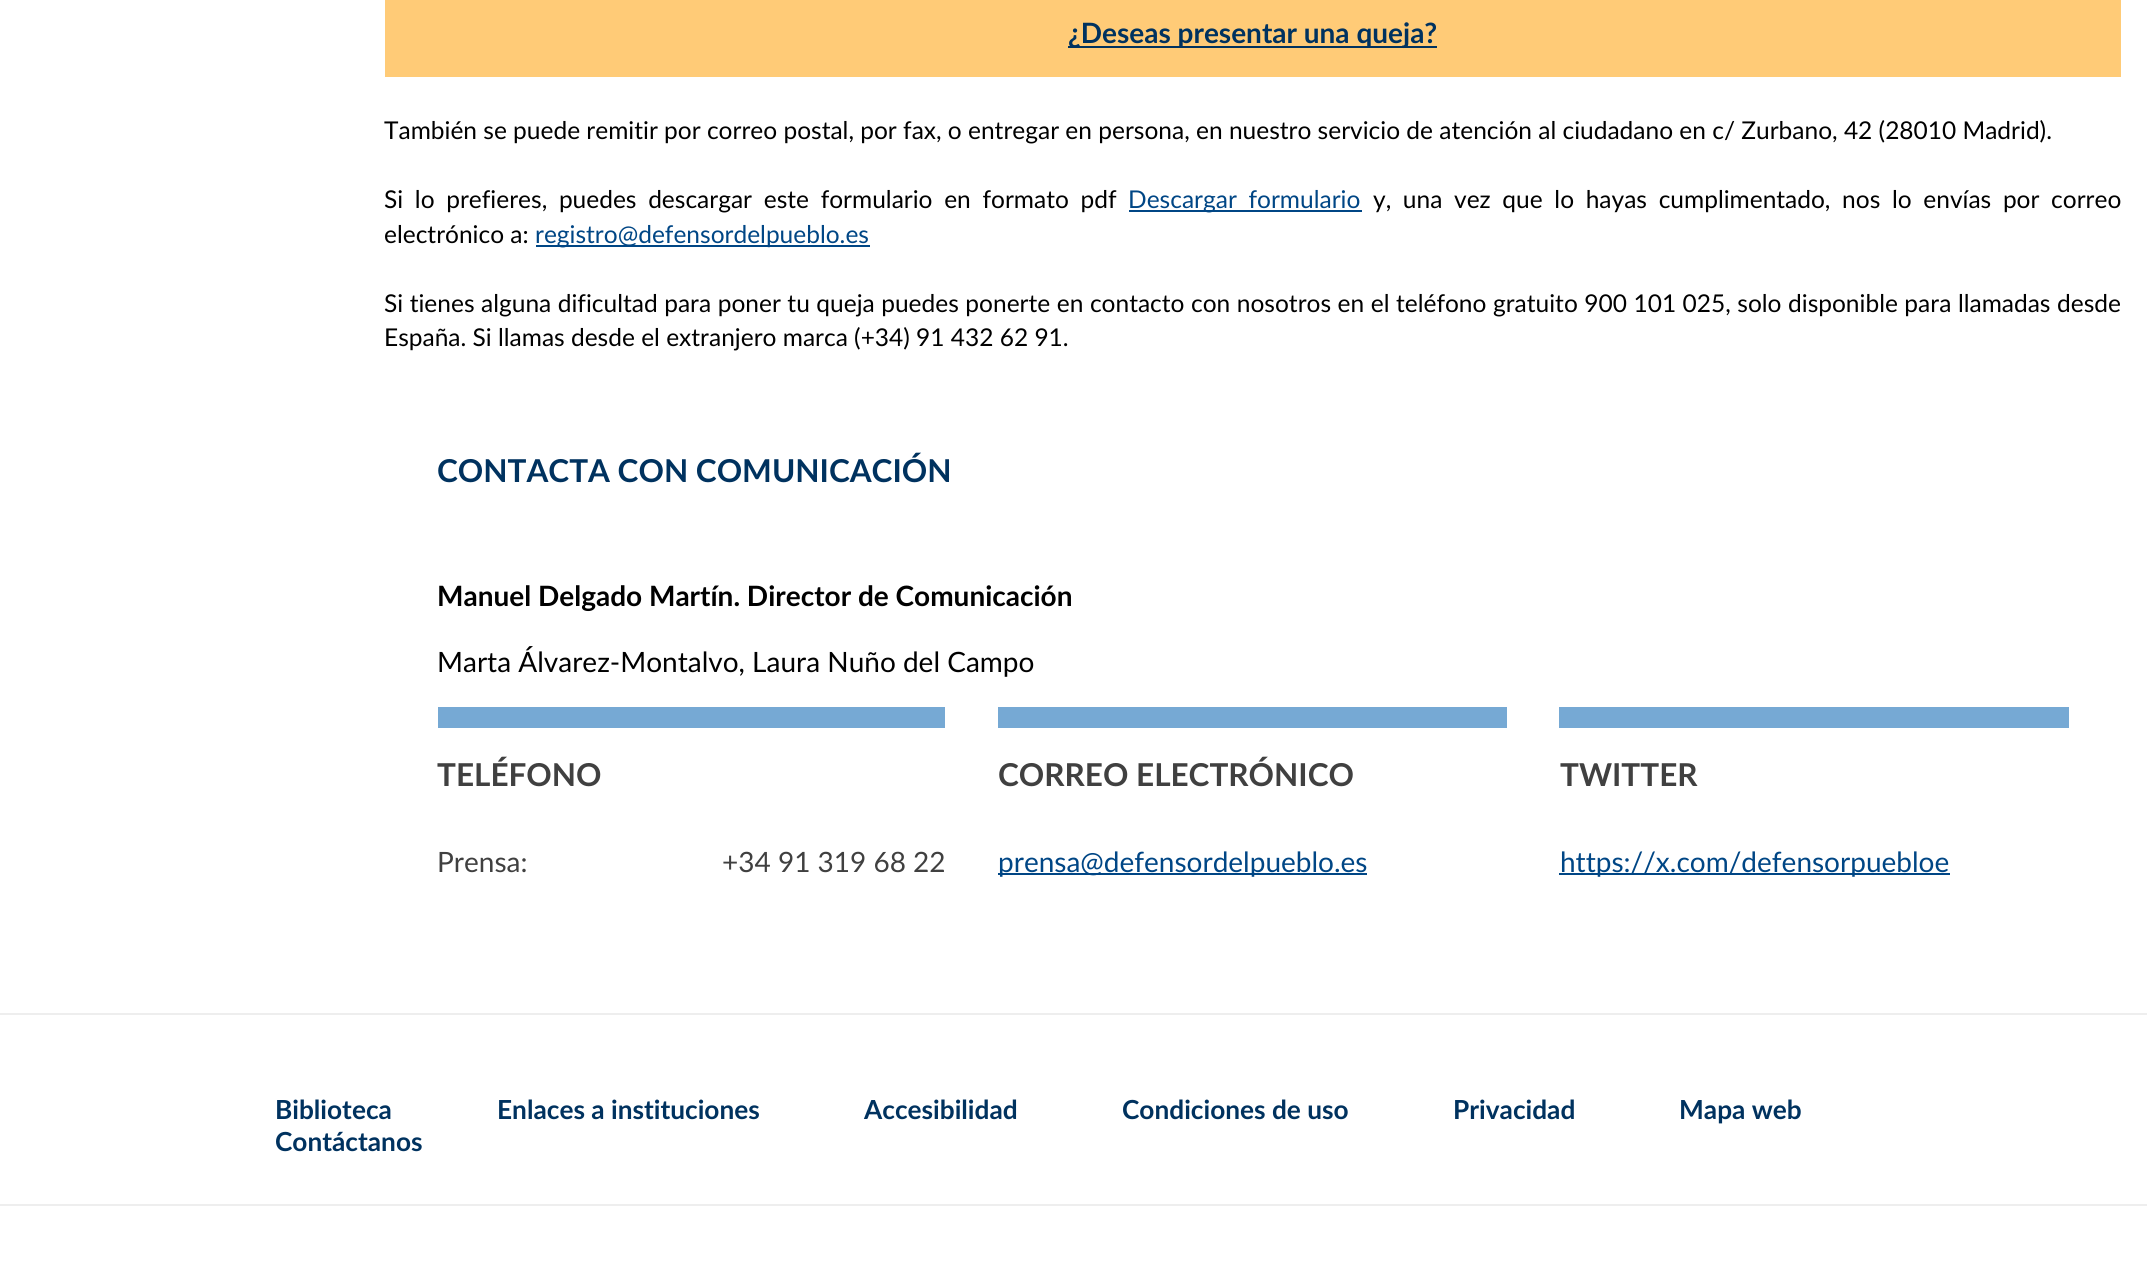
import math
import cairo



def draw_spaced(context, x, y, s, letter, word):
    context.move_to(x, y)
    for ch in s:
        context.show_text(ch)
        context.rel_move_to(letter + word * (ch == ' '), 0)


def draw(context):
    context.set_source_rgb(1, 1, 1)
    context.paint()
    context.set_source_rgb(1, 203 / 255, 119 / 255)
    context.rectangle(385, 0, 1736, 77)
    context.fill()
    context.set_source_rgb(0, 50 / 255, 95 / 255)
    context.rectangle(1068, 46, 369, 2)
    context.fill()
    context.set_source_rgb(0, 70 / 255, 133 / 255)
    context.rectangle(1129, 210, 233, 2)
    context.fill()
    context.rectangle(536, 245, 334, 2)
    context.fill()
    context.set_source_rgb(118 / 255, 169 / 255, 212 / 255)
    context.rectangle(438, 707, 507, 21)
    context.fill()
    context.rectangle(998, 707, 509, 21)
    context.fill()
    context.set_source_rgb(0, 70 / 255, 133 / 255)
    context.rectangle(998, 873, 369, 2)
    context.fill()
    context.set_source_rgb(118 / 255, 169 / 255, 212 / 255)
    context.rectangle(1559, 707, 510, 21)
    context.fill()
    context.set_source_rgb(0, 70 / 255, 133 / 255)
    context.rectangle(1559, 873, 391, 2)
    context.fill()
    context.set_source_rgb(238 / 255, 238 / 255, 238 / 255)
    context.rectangle(0, 1013, 2147, 2)
    context.fill()
    context.rectangle(0, 1204, 2147, 2)
    context.fill()
    context.select_font_face("Lato", cairo.FontSlant.NORMAL, cairo.FontWeight.BOLD)
    context.set_font_size(28)
    context.set_source_rgb(0, 50 / 255, 95 / 255)
    context.move_to(1068, 43)
    context.show_text("¿Deseas presentar una queja?")
    context.select_font_face("Lato")
    context.set_font_size(24.5)
    context.set_source_rgb(0, 0, 0)
    context.move_to(384, 139)
    context.show_text("También se puede remitir por correo postal, por fax, o entregar en persona, en nuestro servicio de atención al ciudadano en c/ Zurbano, 42 (28010 Madrid).")
    draw_spaced(context, 384, 208, "Si lo prefieres, puedes descargar este formulario en formato pdf", 0, 5.4)
    context.set_source_rgb(0, 70 / 255, 133 / 255)
    draw_spaced(context, 1128, 208, "Descargar formulario", 0, 5.4)
    context.set_source_rgb(0, 0, 0)
    draw_spaced(context, 1373, 208, "y, una vez que lo hayas cumplimentado, nos lo envías por correo", 0, 5.4)
    context.move_to(384, 243)
    context.show_text("electrónico a:")
    context.set_source_rgb(0, 70 / 255, 133 / 255)
    context.move_to(535, 243)
    context.show_text("registro@defensordelpueblo.es")
    context.set_source_rgb(0, 0, 0)
    draw_spaced(context, 384, 312, "Si tienes alguna dificultad para poner tu queja puedes ponerte en contacto con nosotros en el teléfono gratuito 900 101 025, solo disponible para llamadas desde", 0, 0.25)
    context.move_to(384, 346)
    context.show_text("España. Si llamas desde el extranjero marca (+34) 91 432 62 91.")
    context.select_font_face("Lato", cairo.FontSlant.NORMAL, cairo.FontWeight.BOLD)
    context.set_font_size(31.5)
    context.set_source_rgb(0, 50 / 255, 95 / 255)
    context.move_to(437, 482)
    context.show_text("CONTACTA CON COMUNICACIÓN")
    context.set_font_size(28)
    context.set_source_rgb(0, 0, 0)
    context.move_to(437, 606)
    context.show_text("Manuel Delgado Martín. Director de Comunicación")
    context.select_font_face("Lato")
    context.move_to(437, 672)
    context.show_text("Marta Álvarez-Montalvo, Laura Nuño del Campo")
    context.select_font_face("Lato", cairo.FontSlant.NORMAL, cairo.FontWeight.BOLD)
    context.set_font_size(31.5)
    context.set_source_rgb(64 / 255, 64 / 255, 64 / 255)
    context.move_to(437, 786)
    context.show_text("TELÉFONO")
    context.select_font_face("Lato")
    context.set_font_size(28)
    context.move_to(437, 872)
    context.show_text("Prensa:")
    context.move_to(722, 872)
    context.show_text("+34 91 319 68 22")
    context.select_font_face("Lato", cairo.FontSlant.NORMAL, cairo.FontWeight.BOLD)
    context.set_font_size(31.5)
    context.move_to(998, 786)
    context.show_text("CORREO ELECTRÓNICO")
    context.select_font_face("Lato")
    context.set_font_size(28)
    context.set_source_rgb(0, 70 / 255, 133 / 255)
    context.move_to(998, 872)
    context.show_text("prensa@defensordelpueblo.es")
    context.select_font_face("Lato", cairo.FontSlant.NORMAL, cairo.FontWeight.BOLD)
    context.set_font_size(31.5)
    context.set_source_rgb(64 / 255, 64 / 255, 64 / 255)
    context.move_to(1560, 786)
    context.show_text("TWITTER")
    context.select_font_face("Lato")
    context.set_font_size(28)
    context.set_source_rgb(0, 70 / 255, 133 / 255)
    context.move_to(1560, 872)
    context.show_text("https://x.com/defensorpuebloe")
    context.select_font_face("Lato", cairo.FontSlant.NORMAL, cairo.FontWeight.BOLD)
    context.set_font_size(26.25)
    context.set_source_rgb(0, 50 / 255, 95 / 255)
    context.move_to(275, 1119)
    context.show_text("Biblioteca")
    context.move_to(497, 1119)
    context.show_text("Enlaces a instituciones")
    context.move_to(864, 1119)
    context.show_text("Accesibilidad")
    context.move_to(1122, 1119)
    context.show_text("Condiciones de uso")
    context.move_to(1453, 1119)
    context.show_text("Privacidad")
    context.move_to(1679, 1119)
    context.show_text("Mapa web")
    context.move_to(275, 1151)
    context.show_text("Contáctanos")


surface = cairo.ImageSurface(cairo.Format.RGB24, 2147, 1262)
context = cairo.Context(surface)
options = cairo.FontOptions()
options.set_hint_metrics(cairo.HintMetrics.OFF)
options.set_hint_style(cairo.HintStyle.NONE)
context.set_font_options(options)
context.set_miter_limit(4)
draw(context)
surface.write_to_png("out.png")
